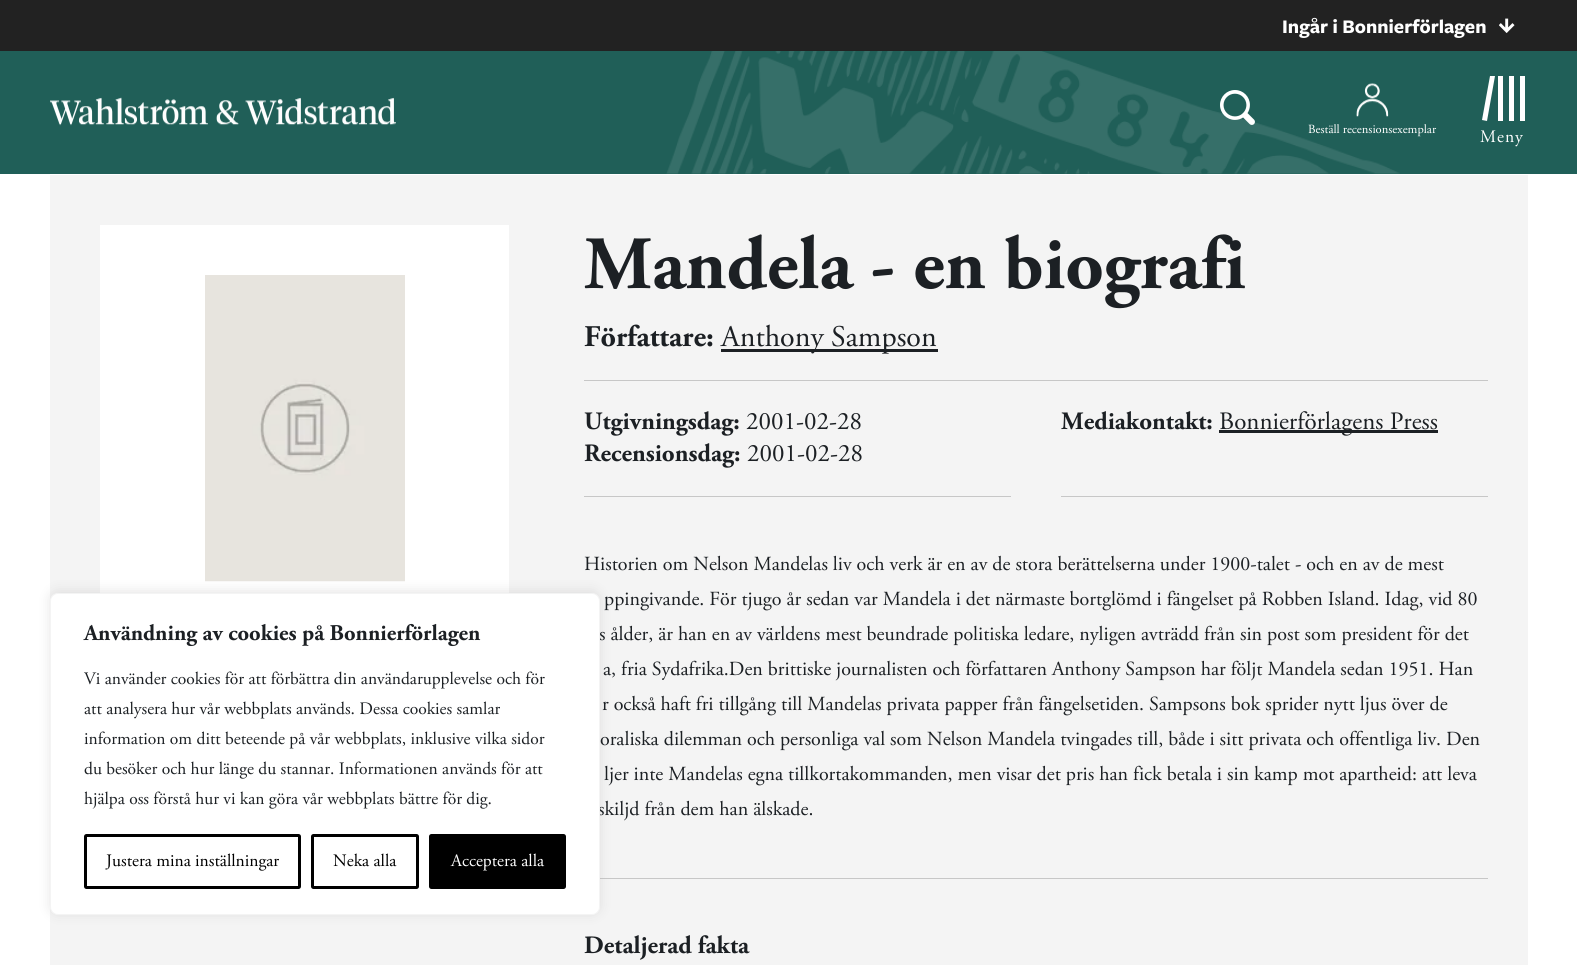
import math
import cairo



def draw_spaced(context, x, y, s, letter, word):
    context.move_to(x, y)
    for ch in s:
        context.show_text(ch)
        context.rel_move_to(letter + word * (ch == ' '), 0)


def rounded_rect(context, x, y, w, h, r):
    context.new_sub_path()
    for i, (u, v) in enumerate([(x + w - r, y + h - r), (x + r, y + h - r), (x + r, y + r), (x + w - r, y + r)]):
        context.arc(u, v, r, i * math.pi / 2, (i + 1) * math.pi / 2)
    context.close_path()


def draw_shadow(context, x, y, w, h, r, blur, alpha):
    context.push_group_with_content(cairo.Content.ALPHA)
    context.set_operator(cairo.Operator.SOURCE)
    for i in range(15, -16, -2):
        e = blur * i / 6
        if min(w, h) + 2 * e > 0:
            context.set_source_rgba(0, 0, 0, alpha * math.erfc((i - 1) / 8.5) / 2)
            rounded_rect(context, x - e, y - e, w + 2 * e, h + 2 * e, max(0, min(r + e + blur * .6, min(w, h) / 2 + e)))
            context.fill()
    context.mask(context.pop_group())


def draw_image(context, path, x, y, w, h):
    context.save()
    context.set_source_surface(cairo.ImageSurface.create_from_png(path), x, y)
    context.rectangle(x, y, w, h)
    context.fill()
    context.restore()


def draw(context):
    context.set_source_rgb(1, 1, 1)
    context.paint()
    context.set_source_rgb(244 / 255, 244 / 255, 244 / 255)
    context.rectangle(50, 175, 1478, 790)
    context.fill()
    context.set_source_rgb(1, 1, 1)
    context.rectangle(100, 225, 409, 368)
    context.fill()
    draw_image(context, "images/6.png", 205, 275, 200, 307)
    context.set_source_rgb(199 / 255, 199 / 255, 199 / 255)
    context.rectangle(600, 878, 888, 1)
    context.fill()
    context.set_source_rgb(172 / 255, 171 / 255, 171 / 255)
    draw_shadow(context, 50, 591, 550, 323, 8, 6, 0.3)
    context.set_source_rgb(34 / 255, 34 / 255, 34 / 255)
    context.rectangle(0, 0, 1577, 51)
    context.fill()
    draw_image(context, "images/1.png", 1499, 18, 16, 15)
    context.set_source_rgb(32 / 255, 95 / 255, 88 / 255)
    context.rectangle(0, 51, 1577, 123)
    context.fill()
    draw_image(context, "images/2.png", 666, 51, 734, 123)
    draw_image(context, "images/3.png", 50, 97, 346, 29)
    draw_image(context, "images/4.png", 1220, 90, 35, 35)
    draw_image(context, "images/5.png", 1356, 83, 33, 34)
    context.set_source_rgb(1, 1, 1)
    context.new_path()
    context.move_to(1490, 76)
    context.line_to(1495, 76)
    context.line_to(1487, 121)
    context.line_to(1482, 120)
    context.close_path()
    context.fill()
    context.rectangle(1498, 76, 5, 45)
    context.fill()
    context.rectangle(1509, 76, 5, 45)
    context.fill()
    context.rectangle(1520, 76, 5, 45)
    context.fill()
    context.set_source_rgb(199 / 255, 199 / 255, 199 / 255)
    context.rectangle(584, 380, 904, 1)
    context.fill()
    context.set_source_rgb(28 / 255, 32 / 255, 36 / 255)
    context.rectangle(721, 349, 217, 3)
    context.fill()
    context.set_source_rgb(199 / 255, 199 / 255, 199 / 255)
    context.rectangle(584, 496, 427, 1)
    context.fill()
    context.rectangle(1061, 496, 427, 1)
    context.fill()
    context.set_source_rgb(28 / 255, 32 / 255, 36 / 255)
    context.rectangle(1219, 430, 219, 3)
    context.fill()
    context.select_font_face("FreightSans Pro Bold", cairo.FontSlant.NORMAL, cairo.FontWeight.BOLD)
    context.set_font_size(20)
    context.set_source_rgb(1, 1, 1)
    context.move_to(1282, 33)
    context.show_text("Ingår i Bonnierförlagen")
    context.select_font_face("Adobe Garamond")
    context.set_font_size(12.5)
    context.move_to(1308, 133)
    context.show_text("Beställ recensionsexemplar")
    context.set_font_size(17.5)
    draw_spaced(context, 1480, 142, "Meny", 1, 0)
    context.select_font_face("Adobe Garamond", cairo.FontSlant.NORMAL, cairo.FontWeight.BOLD)
    context.set_font_size(75)
    context.set_source_rgb(28 / 255, 32 / 255, 36 / 255)
    context.move_to(584, 288)
    context.show_text("Mandela - en biografi")
    context.set_font_size(30)
    context.move_to(584, 346)
    context.show_text("Författare:")
    context.select_font_face("Adobe Garamond")
    context.move_to(721, 346)
    context.show_text("Anthony Sampson")
    context.select_font_face("Adobe Garamond", cairo.FontSlant.NORMAL, cairo.FontWeight.BOLD)
    context.set_font_size(25)
    context.move_to(584, 429)
    context.show_text("Utgivningsdag:")
    context.select_font_face("Adobe Garamond")
    context.move_to(746, 429)
    context.show_text("2001-02-28")
    context.select_font_face("Adobe Garamond", cairo.FontSlant.NORMAL, cairo.FontWeight.BOLD)
    context.move_to(584, 461)
    context.show_text("Recensionsdag:")
    context.select_font_face("Adobe Garamond")
    context.move_to(747, 461)
    context.show_text("2001-02-28")
    context.select_font_face("Adobe Garamond", cairo.FontSlant.NORMAL, cairo.FontWeight.BOLD)
    context.move_to(1061, 429)
    context.show_text("Mediakontakt:")
    context.select_font_face("Adobe Garamond")
    context.move_to(1219, 429)
    context.show_text("Bonnierförlagens Press")
    context.set_font_size(20)
    context.move_to(584, 570)
    context.show_text("Historien om Nelson Mandelas liv och verk är en av de stora berättelserna under 1900-talet - och en av de mest")
    context.move_to(604, 605)
    context.show_text("ppingivande. För tjugo år sedan var Mandela i det närmaste bortglömd i fängelset på Robben Island. Idag, vid 80")
    context.move_to(599, 640)
    context.show_text("s ålder, är han en av världens mest beundrade politiska ledare, nyligen avträdd från sin post som president för det")
    context.move_to(603, 675)
    context.show_text("a, fria Sydafrika.Den brittiske journalisten och författaren Anthony Sampson har följt Mandela sedan 1951. Han")
    context.move_to(602, 710)
    context.show_text("r också haft fri tillgång till Mandelas privata papper från fängelsetiden. Sampsons bok sprider nytt ljus över de")
    context.move_to(600, 745)
    context.show_text("oraliska dilemman och personliga val som Nelson Mandela tvingades till, både i sitt privata och offentliga liv. Den")
    context.move_to(604, 780)
    context.show_text("ljer inte Mandelas egna tillkortakommanden, men visar det pris han fick betala i sin kamp mot apartheid: att leva")
    context.move_to(598, 815)
    context.show_text("skiljd från dem han älskade.")
    context.set_source_rgb(1, 1, 1)
    rounded_rect(context, 50.5, 593.5, 549, 321, 7.5)
    context.fill_preserve()
    context.set_source_rgb(244 / 255, 244 / 255, 244 / 255)
    context.set_line_width(1)
    context.stroke()
    context.set_source_rgb(0, 0, 0)
    rounded_rect(context, 430.5, 835.5, 134, 52, 1)
    context.fill_preserve()
    context.set_line_width(3)
    context.stroke()
    context.set_font_size(17.5)
    context.set_source_rgb(1, 1, 1)
    context.move_to(451, 866)
    context.show_text("Acceptera alla")
    rounded_rect(context, 312.5, 835.5, 105, 52, 1)
    context.set_source_rgb(0, 0, 0)
    context.stroke()
    context.move_to(333, 866)
    context.show_text("Neka alla")
    rounded_rect(context, 85.5, 835.5, 214, 52, 1)
    context.stroke()
    context.move_to(106, 866)
    context.show_text("Justera mina inställningar")
    context.set_source_rgb(28 / 255, 32 / 255, 36 / 255)
    context.move_to(84, 804)
    context.show_text("hjälpa oss förstå hur vi kan göra vår webbplats bättre för dig.")
    context.move_to(84, 774)
    context.show_text("du besöker och hur länge du stannar. Informationen används för att")
    context.move_to(84, 744)
    context.show_text("information om ditt beteende på vår webbplats, inklusive vilka sidor")
    context.move_to(84, 714)
    context.show_text("att analysera hur vår webbplats används. Dessa cookies samlar")
    context.move_to(84, 684)
    context.show_text("Vi använder cookies för att förbättra din användarupplevelse och för")
    context.select_font_face("Adobe Garamond", cairo.FontSlant.NORMAL, cairo.FontWeight.BOLD)
    context.set_font_size(22.5)
    context.move_to(84, 640)
    context.show_text("Användning av cookies på Bonnierförlagen")
    context.set_font_size(25)
    context.move_to(584, 953)
    context.show_text("Detaljerad fakta")


surface = cairo.ImageSurface(cairo.Format.RGB24, 1577, 965)
context = cairo.Context(surface)
options = cairo.FontOptions()
options.set_hint_metrics(cairo.HintMetrics.OFF)
options.set_hint_style(cairo.HintStyle.NONE)
context.set_font_options(options)
context.set_miter_limit(4)
draw(context)
surface.write_to_png("out.png")
